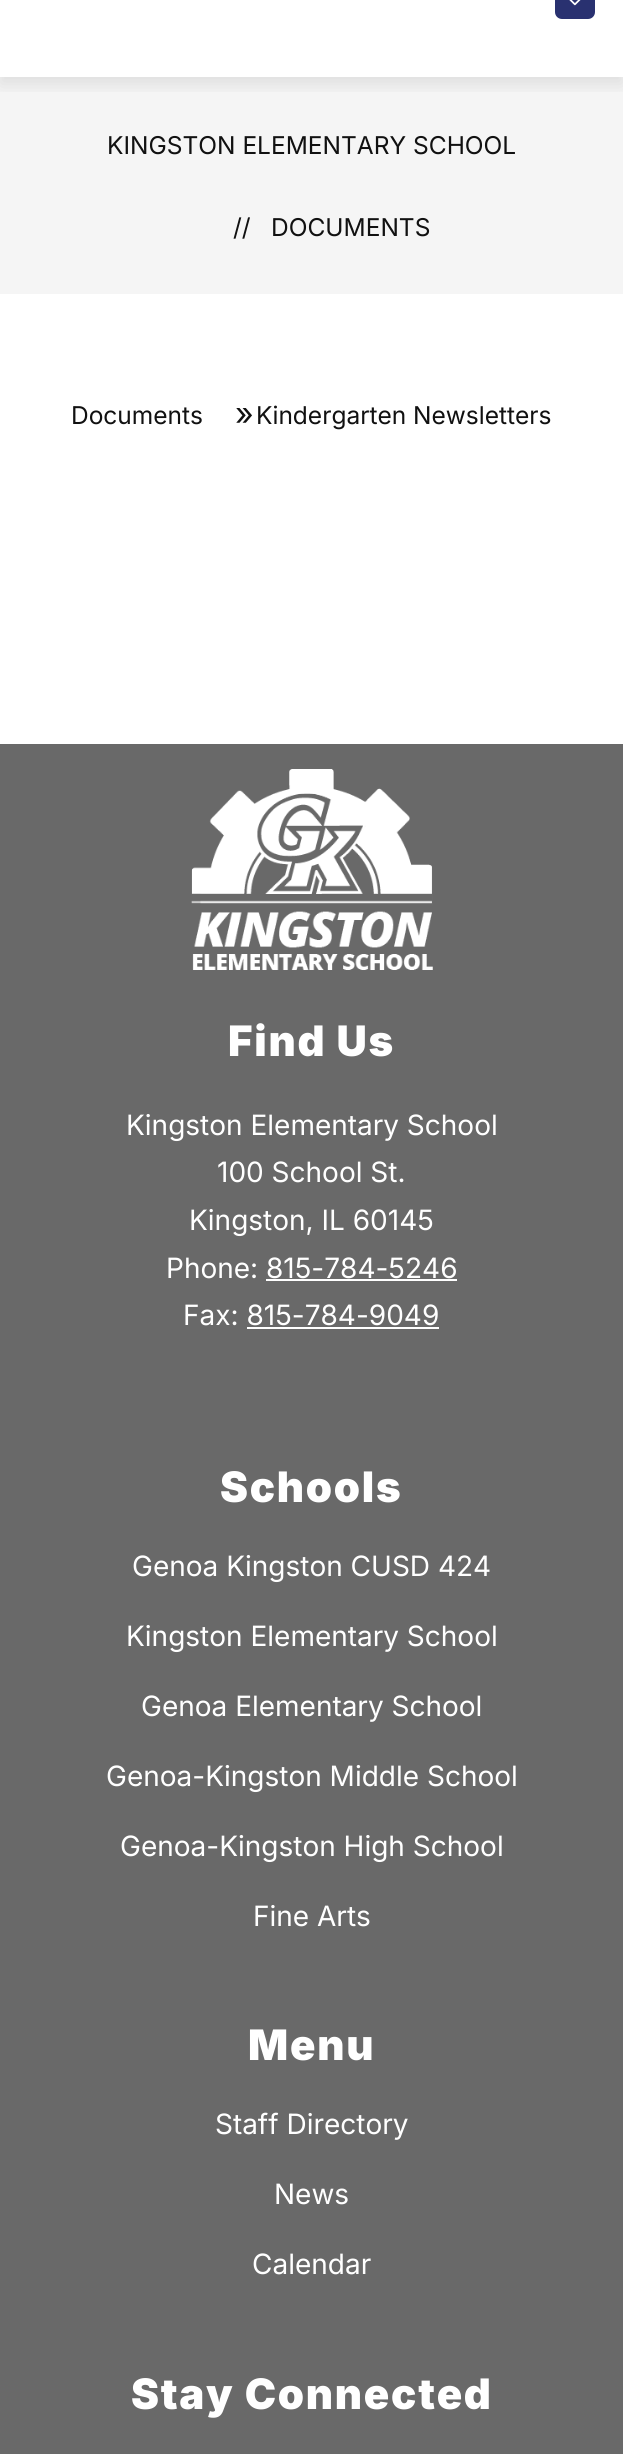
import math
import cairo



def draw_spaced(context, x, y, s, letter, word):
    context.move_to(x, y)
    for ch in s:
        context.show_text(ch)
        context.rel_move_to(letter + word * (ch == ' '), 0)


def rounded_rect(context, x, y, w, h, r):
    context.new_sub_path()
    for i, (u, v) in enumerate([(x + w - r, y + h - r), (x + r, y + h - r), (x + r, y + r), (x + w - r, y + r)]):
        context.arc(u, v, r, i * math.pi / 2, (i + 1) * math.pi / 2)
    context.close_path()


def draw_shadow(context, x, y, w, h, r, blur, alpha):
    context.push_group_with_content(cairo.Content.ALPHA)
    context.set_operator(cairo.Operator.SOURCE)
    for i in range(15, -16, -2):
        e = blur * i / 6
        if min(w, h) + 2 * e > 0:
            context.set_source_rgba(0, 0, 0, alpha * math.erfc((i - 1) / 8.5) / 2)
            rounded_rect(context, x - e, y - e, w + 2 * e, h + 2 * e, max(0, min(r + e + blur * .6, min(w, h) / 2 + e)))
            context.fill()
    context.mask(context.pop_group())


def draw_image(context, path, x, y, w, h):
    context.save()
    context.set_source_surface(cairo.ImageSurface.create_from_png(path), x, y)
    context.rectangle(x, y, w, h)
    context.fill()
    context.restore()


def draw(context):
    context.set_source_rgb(1, 1, 1)
    context.paint()
    context.set_source_rgb(245 / 255, 245 / 255, 245 / 255)
    context.rectangle(0, 77, 623, 217)
    context.fill()
    context.save()
    context.rectangle(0, 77, 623, 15)
    context.clip()
    context.set_source_rgb(0, 0, 0)
    draw_shadow(context, 0, -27, 623, 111, 0, 9, 0.1)
    context.restore()
    draw_image(context, "images/1.png", 555, 0, 40, 19)
    context.set_source_rgb(105 / 255, 105 / 255, 105 / 255)
    context.rectangle(0, 744, 623, 1710)
    context.fill()
    draw_image(context, "images/2.png", 191, 769, 242, 201)
    context.set_source_rgb(1, 1, 1)
    context.rectangle(266, 1279, 191, 2)
    context.fill()
    context.rectangle(247, 1327, 192, 2)
    context.fill()
    context.select_font_face("Inter")
    context.set_font_size(24.5)
    context.set_source_rgb(17 / 255, 17 / 255, 17 / 255)
    context.move_to(107, 154)
    context.show_text("KINGSTON ELEMENTARY SCHOOL")
    context.move_to(233, 236)
    context.show_text("//")
    context.move_to(271, 236)
    context.show_text("DOCUMENTS")
    context.move_to(71, 424)
    context.show_text("Documents")
    context.set_font_size(32)
    context.move_to(235, 425)
    context.show_text("»")
    context.set_font_size(24.5)
    context.move_to(256, 424)
    context.show_text("Kindergarten Newsletters")
    context.select_font_face("Inter Black")
    context.set_font_size(42)
    context.set_source_rgb(1, 1, 1)
    draw_spaced(context, 228, 1056, "Find Us", 1.75, 0)
    context.select_font_face("Inter")
    context.set_font_size(28)
    context.move_to(126, 1135)
    context.show_text("Kingston Elementary School")
    context.move_to(217, 1182)
    context.show_text("100 School St.")
    context.move_to(189, 1230)
    context.show_text("Kingston, IL 60145")
    context.move_to(166, 1278)
    context.show_text("Phone: 815-784-5246")
    context.move_to(183, 1325)
    context.show_text("Fax: 815-784-9049")
    context.select_font_face("Inter Black")
    context.set_font_size(42)
    draw_spaced(context, 220, 1502, "Schools", 1.75, 0)
    context.select_font_face("Inter")
    context.set_font_size(28)
    context.move_to(132, 1576)
    context.show_text("Genoa Kingston CUSD 424")
    context.move_to(126, 1646)
    context.show_text("Kingston Elementary School")
    context.move_to(141, 1716)
    context.show_text("Genoa Elementary School")
    context.move_to(106, 1786)
    context.show_text("Genoa-Kingston Middle School")
    context.move_to(120, 1856)
    context.show_text("Genoa-Kingston High School")
    context.move_to(253, 1926)
    context.show_text("Fine Arts")
    context.select_font_face("Inter Black")
    context.set_font_size(42)
    draw_spaced(context, 248, 2060, "Menu", 1.75, 0)
    context.select_font_face("Inter")
    context.set_font_size(28)
    context.move_to(215, 2134)
    context.show_text("Staff Directory")
    context.move_to(274, 2204)
    context.show_text("News")
    context.move_to(252, 2274)
    context.show_text("Calendar")
    context.select_font_face("Inter Black")
    context.set_font_size(42)
    draw_spaced(context, 131, 2409, "Stay Connected", 1.75, 0)


surface = cairo.ImageSurface(cairo.Format.RGB24, 623, 2454)
context = cairo.Context(surface)
options = cairo.FontOptions()
options.set_hint_metrics(cairo.HintMetrics.OFF)
options.set_hint_style(cairo.HintStyle.NONE)
context.set_font_options(options)
context.set_miter_limit(4)
draw(context)
surface.write_to_png("out.png")
